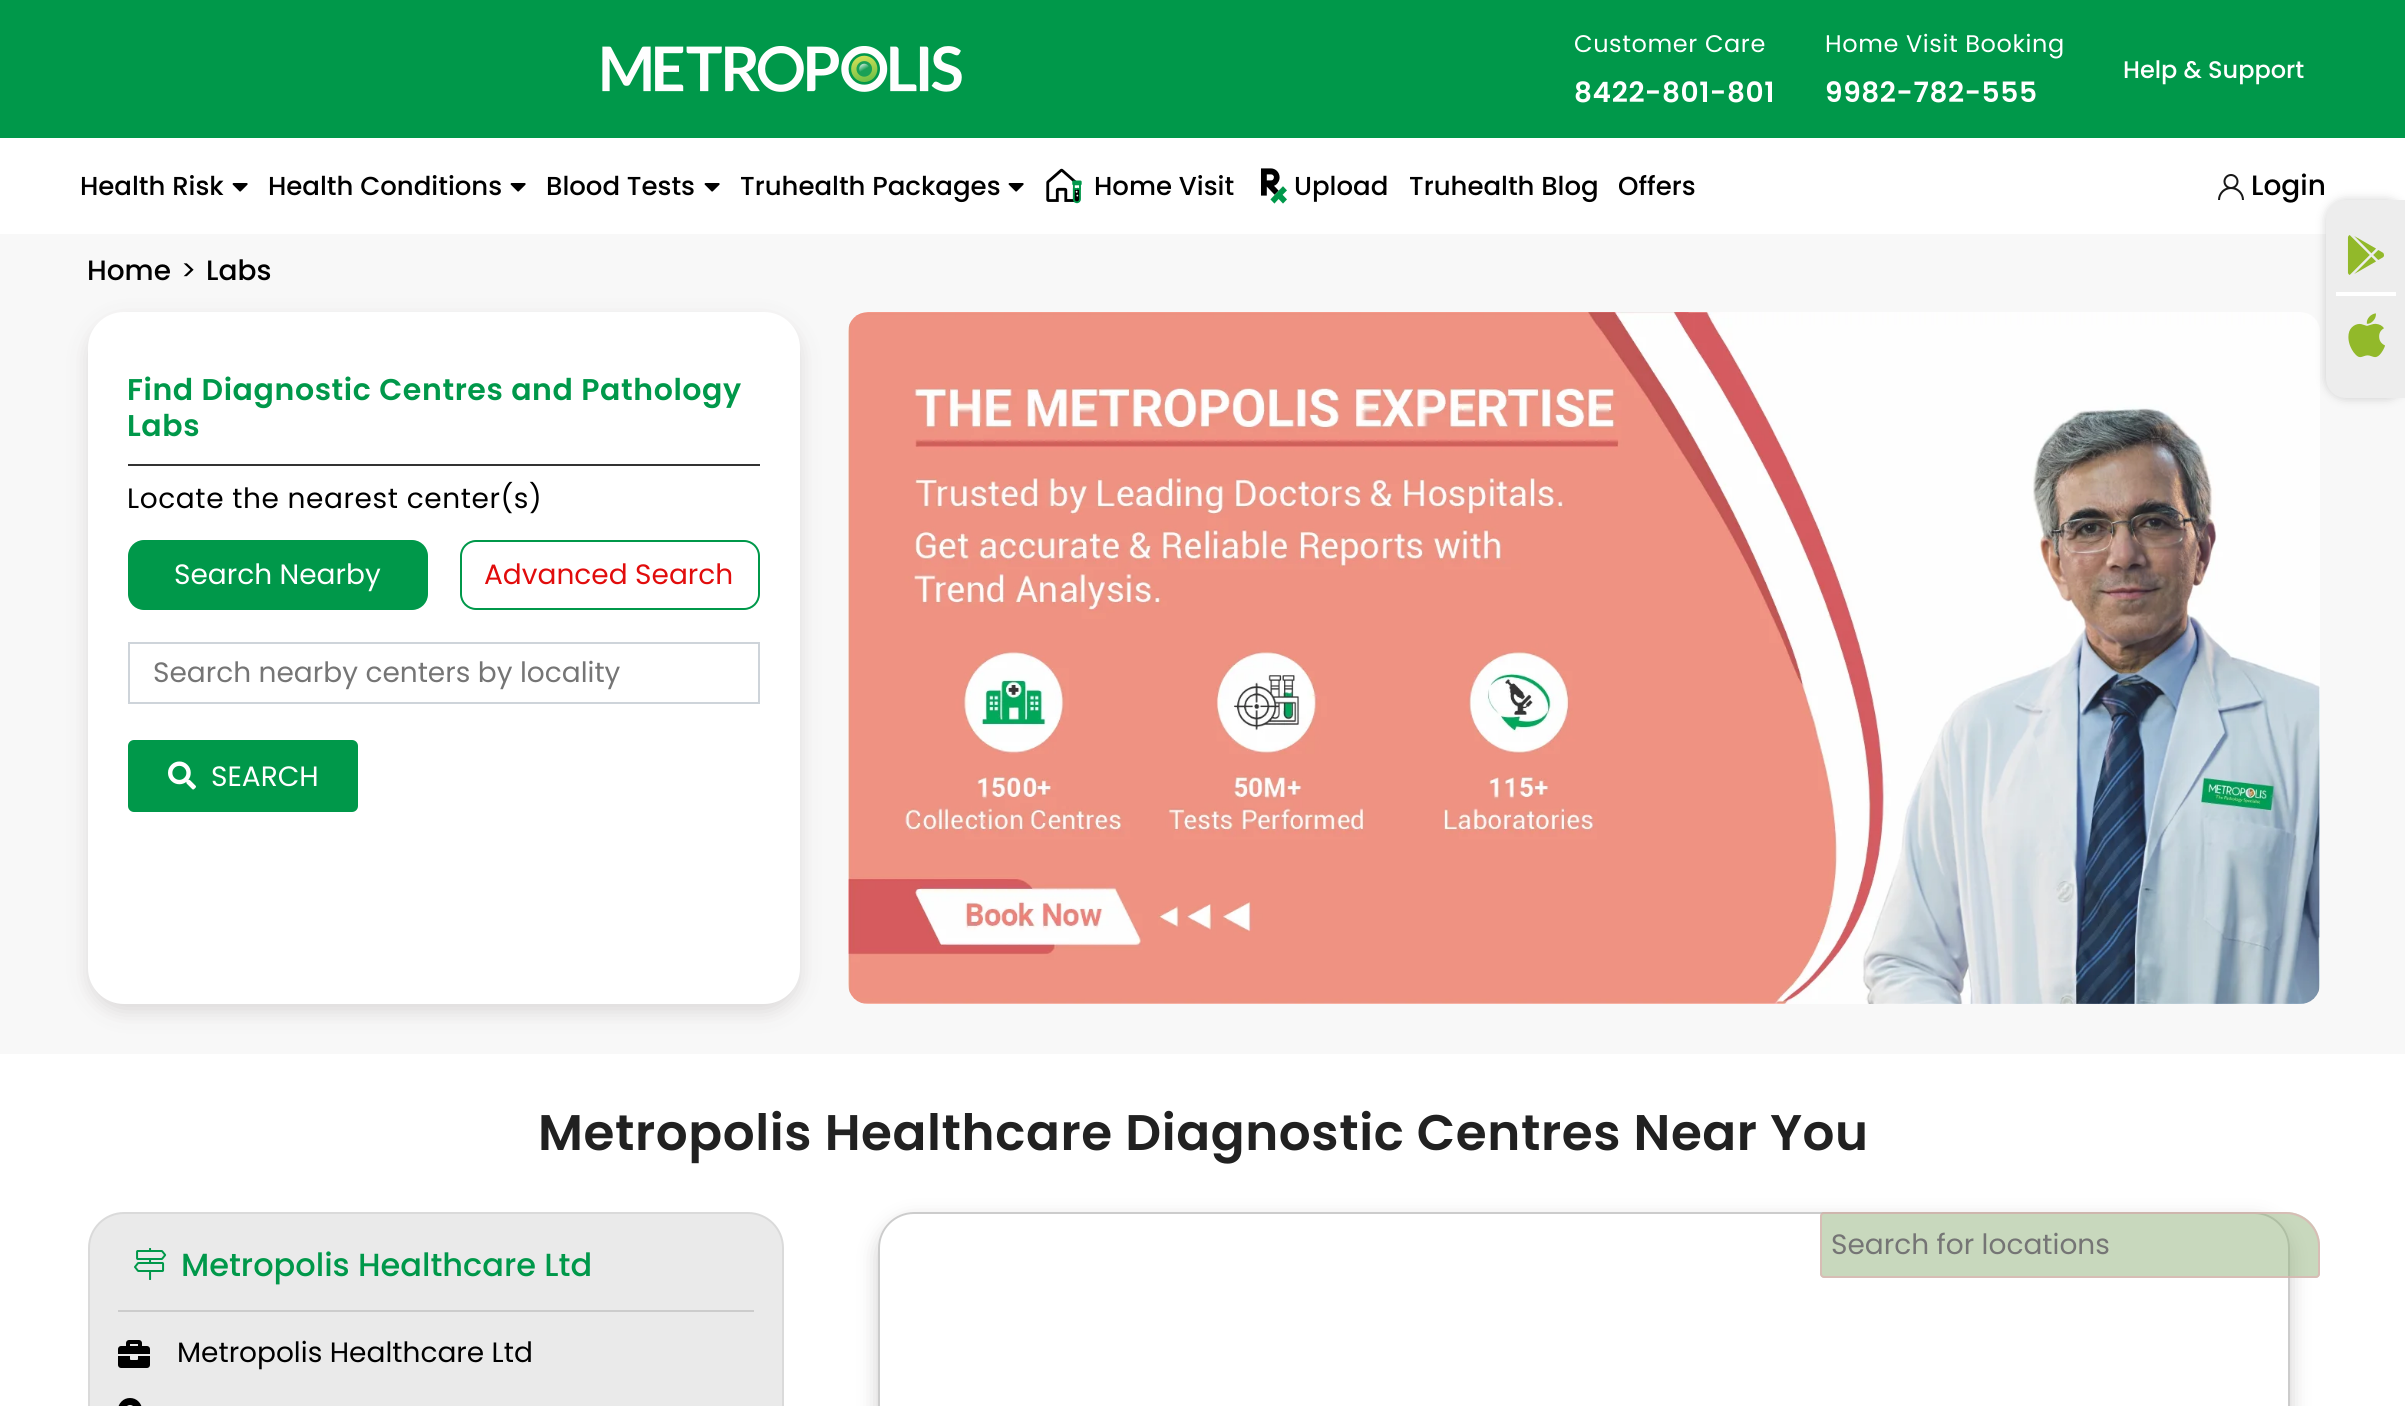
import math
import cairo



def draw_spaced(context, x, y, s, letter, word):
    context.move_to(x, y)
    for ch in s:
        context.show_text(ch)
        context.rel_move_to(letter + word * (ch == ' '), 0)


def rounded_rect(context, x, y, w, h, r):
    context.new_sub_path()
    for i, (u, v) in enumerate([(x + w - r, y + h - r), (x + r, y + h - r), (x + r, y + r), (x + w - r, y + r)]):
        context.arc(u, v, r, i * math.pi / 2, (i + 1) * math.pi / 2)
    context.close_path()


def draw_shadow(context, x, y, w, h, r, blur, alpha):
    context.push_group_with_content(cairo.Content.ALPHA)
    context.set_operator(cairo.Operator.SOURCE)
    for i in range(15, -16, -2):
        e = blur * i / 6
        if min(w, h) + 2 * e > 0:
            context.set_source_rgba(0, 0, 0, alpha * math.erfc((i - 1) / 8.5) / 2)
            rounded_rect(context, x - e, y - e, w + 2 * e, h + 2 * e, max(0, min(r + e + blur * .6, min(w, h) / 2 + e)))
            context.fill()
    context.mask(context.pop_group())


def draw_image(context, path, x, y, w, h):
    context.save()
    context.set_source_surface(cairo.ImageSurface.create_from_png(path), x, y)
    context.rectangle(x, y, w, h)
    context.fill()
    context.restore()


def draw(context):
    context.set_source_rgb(1, 1, 1)
    context.paint()
    context.set_source_rgb(0, 152 / 255, 74 / 255)
    context.rectangle(0, 0, 2405, 138)
    context.fill()
    draw_image(context, "images/1.png", 602, 46, 360, 46)
    draw_image(context, "images/2.png", 232, 183, 16, 9)
    draw_image(context, "images/2.png", 510, 183, 16, 9)
    draw_image(context, "images/2.png", 704, 183, 16, 9)
    draw_image(context, "images/2.png", 1008, 183, 16, 9)
    draw_image(context, "images/3.png", 1046, 168, 36, 36)
    draw_image(context, "images/4.png", 1261, 168, 26, 36)
    draw_image(context, "images/5.png", 2218, 174, 26, 26)
    context.set_source_rgb(248 / 255, 248 / 255, 248 / 255)
    context.rectangle(0, 234, 2405, 820)
    context.fill()
    context.set_source_rgb(220 / 255, 217 / 255, 217 / 255)
    draw_shadow(context, 88, 320, 712, 692, 36, 10, 1)
    context.set_source_rgb(1, 1, 1)
    rounded_rect(context, 88, 312, 712, 692, 36)
    context.fill()
    context.set_source_rgb(51 / 255, 51 / 255, 51 / 255)
    context.rectangle(128, 464, 632, 2)
    context.fill()
    context.set_source_rgb(0, 152 / 255, 74 / 255)
    rounded_rect(context, 129, 541, 298, 68, 15)
    context.fill_preserve()
    context.stroke()
    rounded_rect(context, 461, 541, 298, 68, 15)
    context.stroke()
    context.rectangle(129, 643, 630, 60)
    context.set_source_rgb(206 / 255, 212 / 255, 218 / 255)
    context.stroke()
    context.set_source_rgb(0, 152 / 255, 74 / 255)
    rounded_rect(context, 128, 740, 230, 72, 6)
    context.fill()
    draw_image(context, "images/6.png", 168, 761, 28, 29)
    draw_image(context, "images/7.png", 848, 312, 1472, 692)
    context.save()
    context.set_fill_rule(cairo.FillRule.EVEN_ODD)
    context.new_path()
    context.move_to(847, 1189)
    context.line_to(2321, 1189)
    context.line_to(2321, 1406)
    context.line_to(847, 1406)
    context.close_path()
    context.move_to(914, 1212)
    context.line_to(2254, 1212)
    context.curve_to(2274, 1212, 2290, 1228, 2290, 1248)
    context.line_to(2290, 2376)
    context.curve_to(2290, 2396, 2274, 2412, 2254, 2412)
    context.line_to(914, 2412)
    context.curve_to(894, 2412, 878, 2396, 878, 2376)
    context.line_to(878, 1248)
    context.curve_to(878, 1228, 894, 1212, 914, 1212)
    context.close_path()
    context.clip()
    context.set_source_rgb(208 / 255, 206 / 255, 206 / 255)
    draw_shadow(context, 878, 1220, 1412, 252, 36, 10, 1)
    context.restore()
    rounded_rect(context, 879, 1213, 1410, 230, 35)
    context.set_source_rgb(204 / 255, 204 / 255, 204 / 255)
    context.stroke()
    context.set_source_rgba(146 / 255, 179 / 255, 125 / 255, 0.5)
    context.new_path()
    context.move_to(1824, 1212)
    context.line_to(2286, 1212)
    context.curve_to(2305, 1212, 2320, 1227, 2320, 1246)
    context.line_to(2320, 1274)
    context.curve_to(2320, 1276, 2318, 1278, 2316, 1278)
    context.line_to(1824, 1278)
    context.curve_to(1822, 1278, 1820, 1276, 1820, 1274)
    context.line_to(1820, 1216)
    context.curve_to(1820, 1214, 1822, 1212, 1824, 1212)
    context.close_path()
    context.fill()
    context.new_path()
    context.move_to(1824, 1213)
    context.line_to(2286, 1213)
    context.curve_to(2304, 1213, 2319, 1228, 2319, 1246)
    context.line_to(2319, 1274)
    context.curve_to(2319, 1275.5, 2317.5, 1277, 2316, 1277)
    context.line_to(1824, 1277)
    context.curve_to(1822.5, 1277, 1821, 1275.5, 1821, 1274)
    context.line_to(1821, 1216)
    context.curve_to(1821, 1214.5, 1822.5, 1213, 1824, 1213)
    context.close_path()
    context.set_source_rgba(221 / 255, 178 / 255, 178 / 255, 0.7)
    context.stroke()
    context.set_source_rgb(234 / 255, 234 / 255, 234 / 255)
    rounded_rect(context, 89, 1213, 694, 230, 35)
    context.fill_preserve()
    context.set_source_rgb(218 / 255, 218 / 255, 218 / 255)
    context.stroke()
    context.set_source_rgb(204 / 255, 204 / 255, 204 / 255)
    context.rectangle(118, 1310, 636, 2)
    context.fill()
    draw_image(context, "images/8.png", 134, 1248, 33, 32)
    draw_image(context, "images/9.png", 118, 1340, 32, 28)
    draw_image(context, "images/10.png", 118, 1398, 24, 8)
    context.set_source_rgb(0, 0, 0)
    draw_shadow(context, 2326, 200, 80, 198, 20, 5, 0.19)
    context.set_source_rgb(237 / 255, 237 / 255, 237 / 255)
    context.new_path()
    context.move_to(2346, 200)
    context.line_to(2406, 200)
    context.line_to(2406, 398)
    context.line_to(2346, 398)
    context.curve_to(2335, 398, 2326, 389, 2326, 378)
    context.line_to(2326, 220)
    context.curve_to(2326, 209, 2335, 200, 2346, 200)
    context.close_path()
    context.fill()
    context.set_source_rgb(1, 1, 1)
    context.rectangle(2336, 292, 60, 4)
    context.fill()
    draw_image(context, "images/11.png", 2347, 235, 37, 40)
    draw_image(context, "images/12.png", 2348, 313, 37, 45)
    context.select_font_face("Poppins")
    context.set_font_size(24)
    draw_spaced(context, 1574, 52, "Customer Care", 0.6, 0)
    context.select_font_face("Poppins SemiBold")
    context.set_font_size(28)
    draw_spaced(context, 1574, 102, "8422-801-801", 0.6, 0)
    context.select_font_face("Poppins")
    context.set_font_size(24)
    draw_spaced(context, 1825, 52, "Home Visit Booking", 0.6, 0)
    context.select_font_face("Poppins SemiBold")
    context.set_font_size(28)
    draw_spaced(context, 1825, 102, "9982-782-555", 0.6, 0)
    context.select_font_face("Poppins Medium")
    context.set_font_size(24)
    context.move_to(2123, 78)
    context.show_text("Help & Support")
    context.set_font_size(26)
    context.set_source_rgb(0, 0, 0)
    context.move_to(80, 195)
    context.show_text("Health Risk")
    context.move_to(268, 195)
    context.show_text("Health Conditions")
    context.move_to(546, 195)
    context.show_text("Blood Tests")
    context.move_to(740, 195)
    context.show_text("Truhealth Packages")
    context.move_to(1094, 195)
    context.show_text("Home Visit")
    context.move_to(1294, 195)
    context.show_text("Upload")
    context.move_to(1409, 195)
    context.show_text("Truhealth Blog")
    context.move_to(1618, 195)
    context.show_text("Offers")
    context.set_font_size(28)
    context.move_to(2251, 195)
    context.show_text("Login")
    context.move_to(87, 280)
    context.show_text("Home")
    context.select_font_face("Poppins")
    context.move_to(181, 280)
    context.show_text(">")
    context.select_font_face("Poppins Medium")
    context.move_to(206, 280)
    context.show_text("Labs")
    context.select_font_face("Poppins SemiBold")
    context.set_font_size(30)
    context.set_source_rgb(0, 152 / 255, 74 / 255)
    draw_spaced(context, 127, 400, "Find Diagnostic Centres and Pathology", 0.6, 0)
    draw_spaced(context, 127, 436, "Labs", 0.6, 0)
    context.select_font_face("Poppins")
    context.set_font_size(28)
    context.set_source_rgb(0, 0, 0)
    draw_spaced(context, 127, 508, "Locate the nearest center(s)", 0.6, 0)
    context.set_source_rgb(1, 1, 1)
    context.move_to(174, 584)
    context.show_text("Search Nearby")
    context.set_source_rgb(225 / 255, 12 / 255, 12 / 255)
    context.move_to(484, 584)
    context.show_text("Advanced Search")
    context.set_source_rgb(117 / 255, 117 / 255, 117 / 255)
    context.move_to(153, 682)
    context.show_text("Search nearby centers by locality")
    context.set_source_rgb(1, 1, 1)
    context.move_to(211, 786)
    context.show_text("SEARCH")
    context.select_font_face("Poppins SemiBold")
    context.set_font_size(50)
    context.set_source_rgb(33 / 255, 33 / 255, 33 / 255)
    draw_spaced(context, 538, 1150, "Metropolis Healthcare Diagnostic Centres Near You", 0.6, 0)
    context.select_font_face("Poppins")
    context.set_font_size(28)
    context.set_source_rgb(117 / 255, 117 / 255, 117 / 255)
    context.move_to(1831, 1254)
    context.show_text("Search for locations")
    context.select_font_face("Poppins Medium")
    context.set_font_size(32)
    context.set_source_rgb(0, 152 / 255, 74 / 255)
    context.move_to(181, 1276)
    context.show_text("Metropolis Healthcare Ltd")
    context.select_font_face("Poppins")
    context.set_font_size(28)
    context.set_source_rgb(0, 0, 0)
    context.move_to(177, 1362)
    context.show_text("Metropolis Healthcare Ltd")


surface = cairo.ImageSurface(cairo.Format.RGB24, 2405, 1406)
context = cairo.Context(surface)
options = cairo.FontOptions()
options.set_hint_metrics(cairo.HintMetrics.OFF)
options.set_hint_style(cairo.HintStyle.NONE)
context.set_font_options(options)
context.set_miter_limit(4)
draw(context)
surface.write_to_png("out.png")
